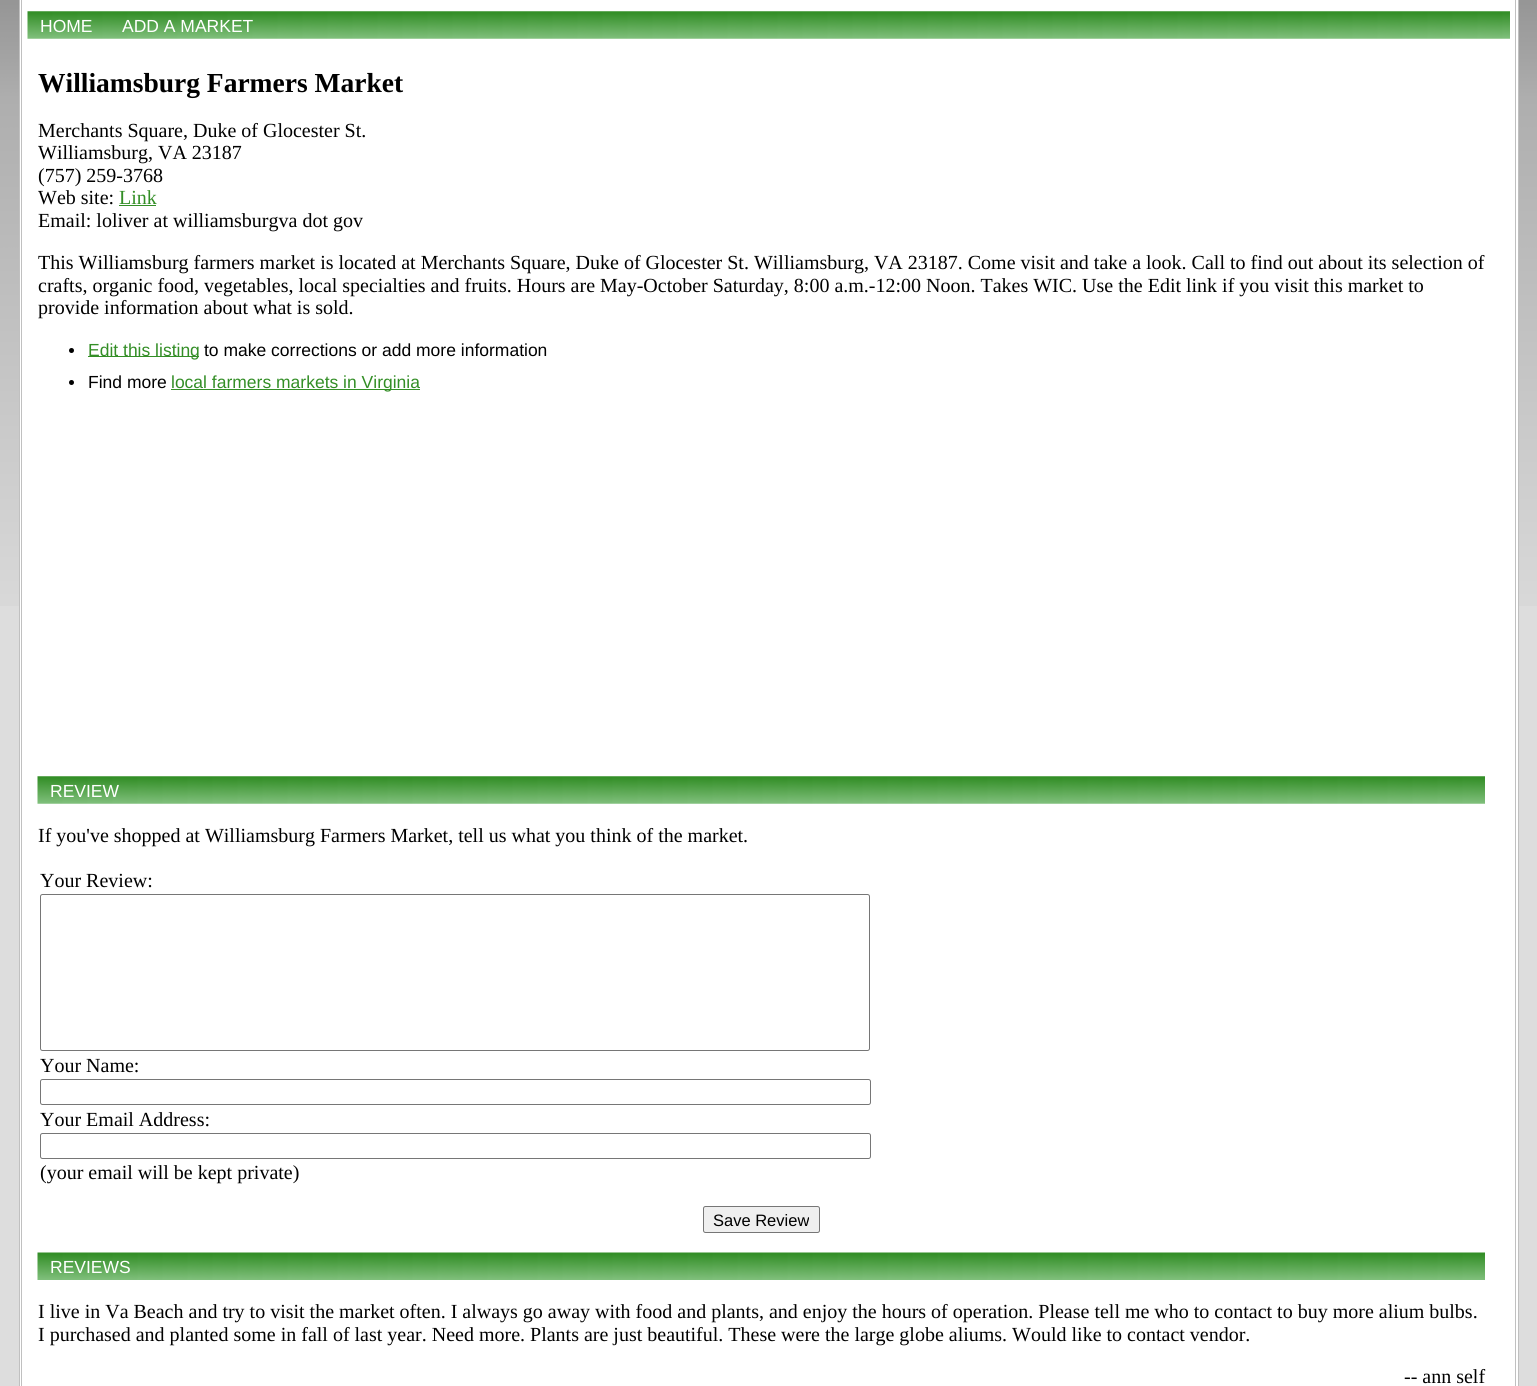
import math
import cairo



def rounded_rect(context, x, y, w, h, r):
    context.new_sub_path()
    for i, (u, v) in enumerate([(x + w - r, y + h - r), (x + r, y + h - r), (x + r, y + r), (x + w - r, y + r)]):
        context.arc(u, v, r, i * math.pi / 2, (i + 1) * math.pi / 2)
    context.close_path()


def draw_image(context, path, x, y, w, h):
    context.save()
    context.set_source_surface(cairo.ImageSurface.create_from_png(path), x, y)
    context.rectangle(x, y, w, h)
    context.fill()
    context.restore()


def draw(context):
    context.set_source_rgb(221 / 255, 221 / 255, 221 / 255)
    context.paint()
    draw_image(context, "images/1.png", 0, 0, 1537, 606)
    context.set_source_rgb(1, 1, 1)
    context.rectangle(19.5, -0.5, 1499, 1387)
    context.fill_preserve()
    context.set_source_rgb(192 / 255, 192 / 255, 192 / 255)
    context.set_line_width(1)
    context.stroke()
    context.rectangle(21.5, -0.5, 1494, 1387)
    context.stroke()
    draw_image(context, "images/2.png", 27, 11, 1483, 28)
    context.set_source_rgb(51 / 255, 142 / 255, 38 / 255)
    context.rectangle(119, 205, 37, 1)
    context.fill()
    context.set_source_rgb(0, 0, 0)
    context.arc(71.5, 350.5, 2.5, 0, 2 * math.pi)
    context.fill()
    context.set_source_rgb(51 / 255, 142 / 255, 38 / 255)
    context.rectangle(88, 356, 111, 1)
    context.fill()
    context.set_source_rgb(0, 0, 0)
    context.arc(71.5, 382.5, 2.5, 0, 2 * math.pi)
    context.fill()
    context.set_source_rgb(51 / 255, 142 / 255, 38 / 255)
    context.rectangle(171, 389, 249, 1)
    context.fill()
    draw_image(context, "images/3.png", 37, 776, 1448, 28)
    rounded_rect(context, 40.5, 894.5, 829, 156, 2)
    context.set_source_rgb(118 / 255, 118 / 255, 118 / 255)
    context.stroke()
    rounded_rect(context, 40.5, 1079.5, 830, 25, 2)
    context.stroke()
    rounded_rect(context, 40.5, 1133.5, 830, 25, 2)
    context.stroke()
    context.set_source_rgb(239 / 255, 239 / 255, 239 / 255)
    rounded_rect(context, 703.5, 1206.5, 116, 26, 2)
    context.fill_preserve()
    context.set_source_rgb(118 / 255, 118 / 255, 118 / 255)
    context.stroke()
    draw_image(context, "images/4.png", 37, 1252, 1448, 28)
    context.select_font_face("Liberation Sans")
    context.set_font_size(17.5)
    context.set_source_rgb(1, 1, 1)
    context.move_to(40, 32)
    context.show_text("HOME")
    context.move_to(122, 32)
    context.show_text("ADD A MARKET")
    context.select_font_face("Liberation Serif", cairo.FontSlant.NORMAL, cairo.FontWeight.BOLD)
    context.set_font_size(27.5)
    context.set_source_rgb(0, 0, 0)
    context.move_to(38, 92)
    context.show_text("Williamsburg Farmers Market")
    context.select_font_face("Liberation Serif")
    context.set_font_size(20)
    context.move_to(38, 137)
    context.show_text("Merchants Square, Duke of Glocester St.")
    context.move_to(38, 159)
    context.show_text("Williamsburg, VA 23187")
    context.move_to(38, 182)
    context.show_text("(757) 259-3768")
    context.move_to(38, 204)
    context.show_text("Web site:")
    context.set_source_rgb(51 / 255, 142 / 255, 38 / 255)
    context.move_to(119, 204)
    context.show_text("Link")
    context.set_source_rgb(0, 0, 0)
    context.move_to(38, 227)
    context.show_text("Email: loliver at williamsburgva dot gov")
    context.move_to(38, 269)
    context.show_text("This Williamsburg farmers market is located at Merchants Square, Duke of Glocester St. Williamsburg, VA 23187. Come visit and take a look. Call to find out about its selection of")
    context.move_to(38, 292)
    context.show_text("crafts, organic food, vegetables, local specialties and fruits. Hours are May-October Saturday, 8:00 a.m.-12:00 Noon. Takes WIC. Use the Edit link if you visit this market to")
    context.move_to(38, 314)
    context.show_text("provide information about what is sold.")
    context.select_font_face("Liberation Sans")
    context.set_font_size(17.5)
    context.set_source_rgb(51 / 255, 142 / 255, 38 / 255)
    context.move_to(88, 356)
    context.show_text("Edit this listing")
    context.set_source_rgb(0, 0, 0)
    context.move_to(204, 356)
    context.show_text("to make corrections or add more information")
    context.move_to(88, 388)
    context.show_text("Find more")
    context.set_source_rgb(51 / 255, 142 / 255, 38 / 255)
    context.move_to(171, 388)
    context.show_text("local farmers markets in Virginia")
    context.set_source_rgb(1, 1, 1)
    context.move_to(50, 797)
    context.show_text("REVIEW")
    context.select_font_face("Liberation Serif")
    context.set_font_size(20)
    context.set_source_rgb(0, 0, 0)
    context.move_to(38, 842)
    context.show_text("If you've shopped at Williamsburg Farmers Market, tell us what you think of the market.")
    context.move_to(40, 887)
    context.show_text("Your Review:")
    context.move_to(40, 1072)
    context.show_text("Your Name:")
    context.move_to(40, 1126)
    context.show_text("Your Email Address:")
    context.move_to(40, 1179)
    context.show_text("(your email will be kept private)")
    context.select_font_face("Liberation Sans")
    context.set_font_size(16.5)
    context.move_to(713, 1226)
    context.show_text("Save Review")
    context.set_font_size(17.5)
    context.set_source_rgb(1, 1, 1)
    context.move_to(50, 1273)
    context.show_text("REVIEWS")
    context.select_font_face("Liberation Serif")
    context.set_font_size(20)
    context.set_source_rgb(0, 0, 0)
    context.move_to(38, 1318)
    context.show_text("I live in Va Beach and try to visit the market often. I always go away with food and plants, and enjoy the hours of operation. Please tell me who to contact to buy more alium bulbs.")
    context.move_to(38, 1341)
    context.show_text("I purchased and planted some in fall of last year. Need more. Plants are just beautiful. These were the large globe aliums. Would like to contact vendor.")
    context.move_to(1404, 1383)
    context.show_text("-- ann self")


surface = cairo.ImageSurface(cairo.Format.RGB24, 1537, 1386)
context = cairo.Context(surface)
options = cairo.FontOptions()
options.set_hint_metrics(cairo.HintMetrics.OFF)
options.set_hint_style(cairo.HintStyle.NONE)
context.set_font_options(options)
context.set_miter_limit(4)
draw(context)
surface.write_to_png("out.png")
